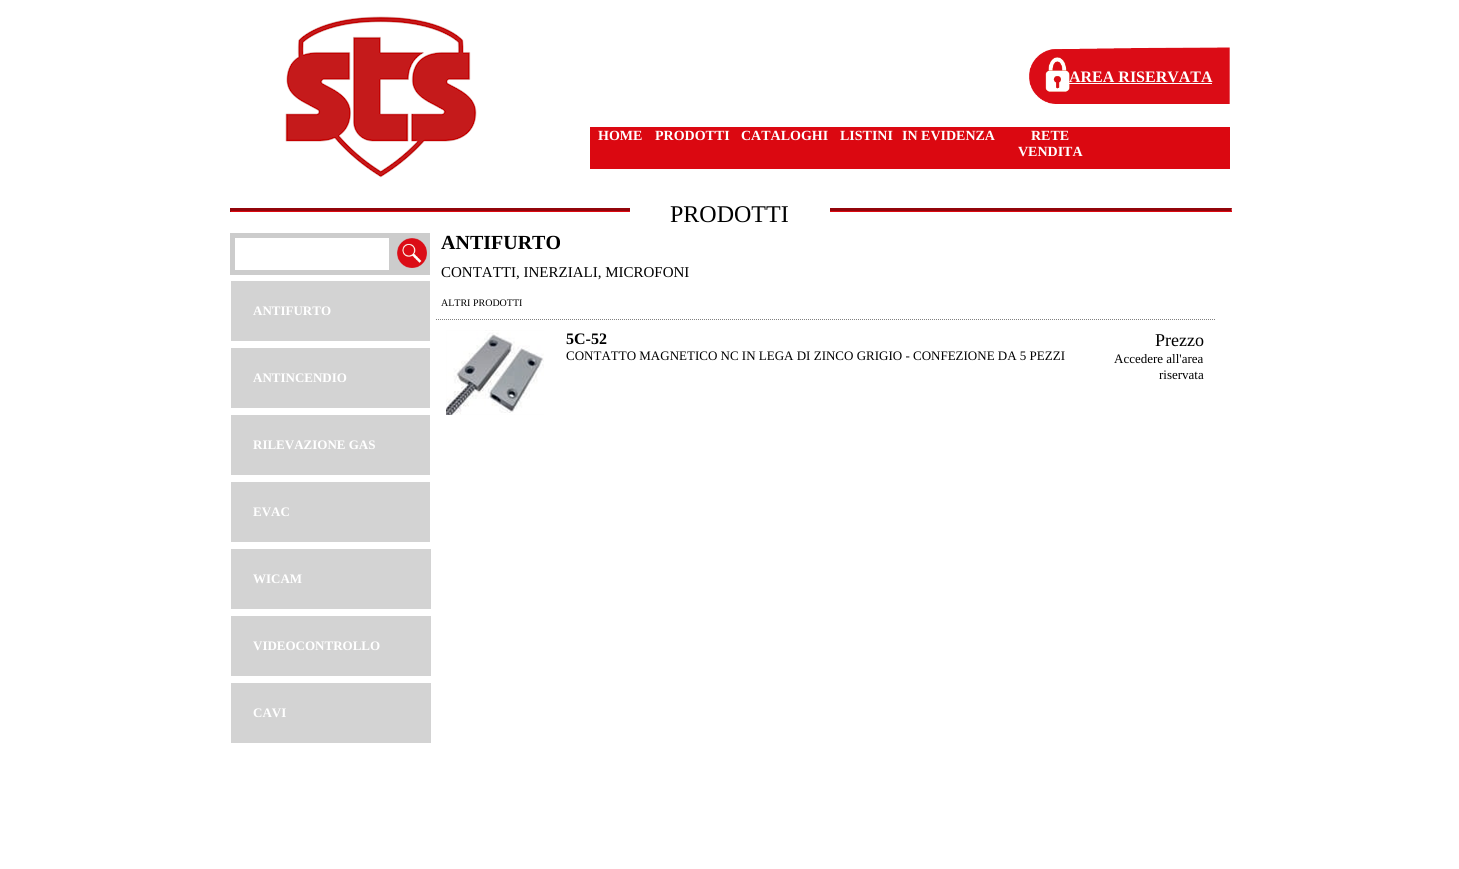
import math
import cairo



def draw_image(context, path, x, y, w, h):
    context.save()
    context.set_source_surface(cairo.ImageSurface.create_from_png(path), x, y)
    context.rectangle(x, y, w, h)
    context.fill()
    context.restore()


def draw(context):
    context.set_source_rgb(1, 1, 1)
    context.paint()
    draw_image(context, "images/1.png", 285, 16, 192, 162)
    draw_image(context, "images/2.png", 1029, 47, 201, 57)
    context.set_source_rgb(1, 1, 1)
    context.rectangle(1069, 83, 143, 1)
    context.fill()
    context.set_source_rgb(219 / 255, 8 / 255, 17 / 255)
    context.rectangle(590, 127, 640, 42)
    context.fill()
    context.set_source_rgb(146 / 255, 5 / 255, 11 / 255)
    context.new_path()
    context.move_to(230, 208)
    context.line_to(1232, 208)
    context.line_to(1231, 211)
    context.line_to(231, 211)
    context.close_path()
    context.fill()
    context.set_source_rgb(219 / 255, 8 / 255, 17 / 255)
    context.new_path()
    context.move_to(1232, 208)
    context.line_to(1232, 212)
    context.line_to(1231, 211)
    context.close_path()
    context.fill()
    context.rectangle(230, 211, 1002, 1)
    context.fill()
    context.set_source_rgb(1, 1, 1)
    context.rectangle(630, 208, 200, 4)
    context.fill()
    context.set_source_rgb(146 / 255, 5 / 255, 11 / 255)
    context.rectangle(230, 208, 1, 4)
    context.fill()
    context.set_source_rgb(204 / 255, 204 / 255, 204 / 255)
    context.rectangle(230, 233, 200, 42)
    context.fill()
    context.set_source_rgb(1, 1, 1)
    context.rectangle(235, 238, 154, 32)
    context.fill()
    draw_image(context, "images/3.png", 397, 238, 30, 30)
    context.set_source_rgb(211 / 255, 211 / 255, 211 / 255)
    context.rectangle(231, 281, 199, 60)
    context.fill()
    context.rectangle(231, 348, 199, 60)
    context.fill()
    context.rectangle(231, 415, 199, 60)
    context.fill()
    context.rectangle(231, 482, 199, 60)
    context.fill()
    context.rectangle(231, 549, 200, 60)
    context.fill()
    context.rectangle(231, 616, 200, 60)
    context.fill()
    context.rectangle(231, 683, 200, 60)
    context.fill()
    context.new_path()
    context.move_to(436, 319.5)
    context.line_to(1216, 319.5)
    context.set_source_rgb(128 / 255, 128 / 255, 128 / 255)
    context.set_line_width(1)
    context.set_dash([1, 1])
    context.stroke()
    draw_image(context, "images/4.png", 446, 330, 98, 85)
    context.select_font_face("Liberation Serif", cairo.FontSlant.NORMAL, cairo.FontWeight.BOLD)
    context.set_font_size(16)
    context.set_source_rgb(1, 1, 1)
    context.move_to(1069, 82)
    context.show_text("AREA RISERVATA")
    context.set_font_size(14)
    context.move_to(598, 140)
    context.show_text("HOME")
    context.move_to(655, 140)
    context.show_text("PRODOTTI")
    context.move_to(741, 140)
    context.show_text("CATALOGHI")
    context.move_to(840, 140)
    context.show_text("LISTINI")
    context.move_to(902, 140)
    context.show_text("IN EVIDENZA")
    context.move_to(1031, 140)
    context.show_text("RETE")
    context.move_to(1018, 156)
    context.show_text("VENDITA")
    context.select_font_face("Liberation Serif")
    context.set_font_size(24)
    context.set_source_rgb(0, 0, 0)
    context.move_to(670, 222)
    context.show_text("PRODOTTI")
    context.select_font_face("Liberation Serif", cairo.FontSlant.NORMAL, cairo.FontWeight.BOLD)
    context.set_font_size(13)
    context.set_source_rgb(1, 1, 1)
    context.move_to(253, 315)
    context.show_text("ANTIFURTO")
    context.move_to(253, 382)
    context.show_text("ANTINCENDIO")
    context.move_to(253, 449)
    context.show_text("RILEVAZIONE GAS")
    context.move_to(253, 516)
    context.show_text("EVAC")
    context.move_to(253, 583)
    context.show_text("WICAM")
    context.move_to(253, 650)
    context.show_text("VIDEOCONTROLLO")
    context.move_to(253, 717)
    context.show_text("CAVI")
    context.set_font_size(20)
    context.set_source_rgb(0, 0, 0)
    context.move_to(441, 249)
    context.show_text("ANTIFURTO")
    context.select_font_face("Liberation Serif")
    context.set_font_size(15)
    context.move_to(441, 277)
    context.show_text("CONTATTI, INERZIALI, MICROFONI")
    context.set_font_size(10)
    context.move_to(441, 306)
    context.show_text("ALTRI PRODOTTI")
    context.select_font_face("Liberation Serif", cairo.FontSlant.NORMAL, cairo.FontWeight.BOLD)
    context.set_font_size(16)
    context.move_to(566, 344)
    context.show_text("5C-52")
    context.select_font_face("Liberation Serif")
    context.set_font_size(13)
    context.move_to(566, 360)
    context.show_text("CONTATTO MAGNETICO NC IN LEGA DI ZINCO GRIGIO - CONFEZIONE DA 5 PEZZI")
    context.set_font_size(18)
    context.move_to(1155, 346)
    context.show_text("Prezzo")
    context.set_font_size(13)
    context.move_to(1114, 363)
    context.show_text("Accedere all'area")
    context.move_to(1159, 379)
    context.show_text("riservata")


surface = cairo.ImageSurface(cairo.Format.RGB24, 1459, 869)
context = cairo.Context(surface)
options = cairo.FontOptions()
options.set_hint_metrics(cairo.HintMetrics.OFF)
options.set_hint_style(cairo.HintStyle.NONE)
context.set_font_options(options)
context.set_miter_limit(4)
draw(context)
surface.write_to_png("out.png")
